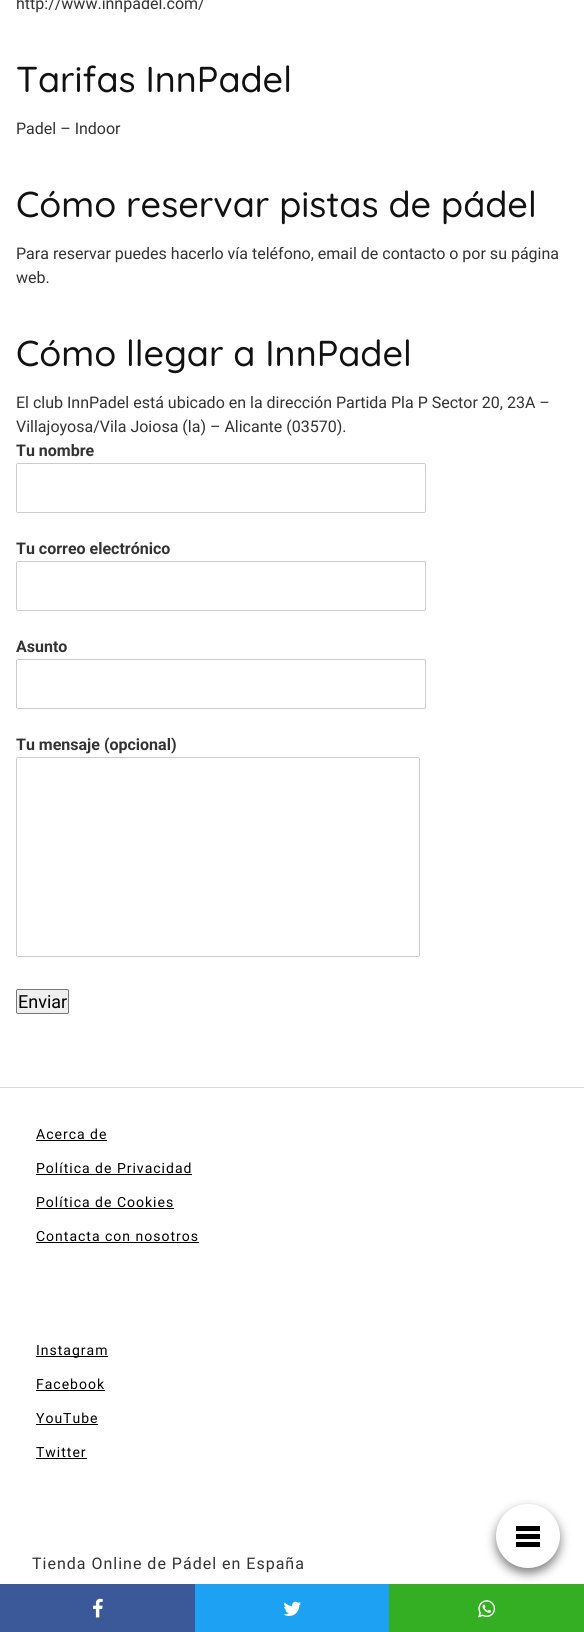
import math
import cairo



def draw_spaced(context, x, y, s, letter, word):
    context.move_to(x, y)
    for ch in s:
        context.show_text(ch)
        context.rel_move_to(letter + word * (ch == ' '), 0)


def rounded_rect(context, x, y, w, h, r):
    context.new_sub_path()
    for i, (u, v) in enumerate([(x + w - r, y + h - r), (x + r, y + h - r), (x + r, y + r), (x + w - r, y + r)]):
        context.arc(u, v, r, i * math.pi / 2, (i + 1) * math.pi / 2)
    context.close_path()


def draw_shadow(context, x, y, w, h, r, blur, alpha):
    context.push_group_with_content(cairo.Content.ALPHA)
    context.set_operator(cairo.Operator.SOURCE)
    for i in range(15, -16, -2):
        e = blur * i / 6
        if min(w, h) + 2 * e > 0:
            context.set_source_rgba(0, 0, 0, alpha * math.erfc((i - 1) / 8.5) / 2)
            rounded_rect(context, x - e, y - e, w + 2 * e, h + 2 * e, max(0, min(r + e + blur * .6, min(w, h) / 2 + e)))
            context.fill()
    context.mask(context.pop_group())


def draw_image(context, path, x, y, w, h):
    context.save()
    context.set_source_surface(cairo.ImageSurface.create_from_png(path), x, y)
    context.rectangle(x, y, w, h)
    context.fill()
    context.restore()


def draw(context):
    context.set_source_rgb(1, 1, 1)
    context.paint()
    rounded_rect(context, 16.5, 463.5, 409, 49, 1.5)
    context.set_source_rgb(204 / 255, 204 / 255, 204 / 255)
    context.set_line_width(1)
    context.stroke()
    rounded_rect(context, 16.5, 561.5, 409, 49, 1.5)
    context.stroke()
    rounded_rect(context, 16.5, 659.5, 409, 49, 1.5)
    context.stroke()
    rounded_rect(context, 16.5, 757.5, 403, 199, 1.5)
    context.stroke()
    context.set_source_rgb(239 / 255, 239 / 255, 239 / 255)
    rounded_rect(context, 16.5, 989.5, 52, 24, 1.5)
    context.fill_preserve()
    context.set_source_rgb(118 / 255, 118 / 255, 118 / 255)
    context.stroke()
    context.set_source_rgb(219 / 255, 219 / 255, 219 / 255)
    context.rectangle(0, 1087, 584, 1)
    context.fill()
    context.set_source_rgb(0, 0, 0)
    context.rectangle(36, 1140, 71, 1)
    context.fill()
    context.rectangle(36, 1174, 156, 1)
    context.fill()
    context.rectangle(36, 1208, 138, 1)
    context.fill()
    context.rectangle(36, 1242, 163, 1)
    context.fill()
    context.rectangle(36, 1356, 72, 1)
    context.fill()
    context.rectangle(36, 1390, 69, 1)
    context.fill()
    context.rectangle(36, 1424, 62, 1)
    context.fill()
    context.rectangle(36, 1458, 51, 1)
    context.fill()
    context.set_source_rgb(0, 0, 0)
    draw_shadow(context, 496, 1509, 64, 64, 32, 5, 0.5)
    context.set_source_rgb(1, 1, 1)
    context.arc(528, 1536, 32, 0, 2 * math.pi)
    context.fill()
    context.set_source_rgb(0, 0, 0)
    context.rectangle(516, 1534, 24, 5)
    context.fill()
    context.rectangle(516, 1526, 24, 5)
    context.fill()
    context.rectangle(516, 1542, 24, 5)
    context.fill()
    context.set_source_rgb(59 / 255, 89 / 255, 152 / 255)
    context.rectangle(0, 1584, 195, 48)
    context.fill()
    draw_image(context, "images/1.png", 93, 1598, 10, 20)
    context.set_source_rgb(29 / 255, 161 / 255, 242 / 255)
    context.rectangle(195, 1584, 194, 48)
    context.fill()
    draw_image(context, "images/2.png", 283, 1601, 18, 15)
    context.set_source_rgb(52 / 255, 175 / 255, 35 / 255)
    context.rectangle(389, 1584, 195, 48)
    context.fill()
    draw_image(context, "images/3.png", 478, 1600, 18, 18)
    context.select_font_face("Roboto")
    context.set_font_size(16)
    context.set_source_rgb(51 / 255, 51 / 255, 51 / 255)
    context.move_to(16, 9)
    context.show_text("http://www.innpadel.com/")
    context.select_font_face("Quicksand Medium")
    context.set_font_size(36)
    context.set_source_rgb(17 / 255, 17 / 255, 17 / 255)
    context.move_to(16, 92)
    context.show_text("Tarifas InnPadel")
    context.select_font_face("Roboto")
    context.set_font_size(16)
    context.set_source_rgb(51 / 255, 51 / 255, 51 / 255)
    context.move_to(16, 134)
    context.show_text("Padel – Indoor")
    context.select_font_face("Quicksand Medium")
    context.set_font_size(36)
    context.set_source_rgb(17 / 255, 17 / 255, 17 / 255)
    context.move_to(16, 217)
    context.show_text("Cómo reservar pistas de pádel")
    context.select_font_face("Roboto")
    context.set_font_size(16)
    context.set_source_rgb(51 / 255, 51 / 255, 51 / 255)
    context.move_to(16, 259)
    context.show_text("Para reservar puedes hacerlo vía teléfono, email de contacto o por su página")
    context.move_to(16, 283)
    context.show_text("web.")
    context.select_font_face("Quicksand Medium")
    context.set_font_size(36)
    context.set_source_rgb(17 / 255, 17 / 255, 17 / 255)
    context.move_to(16, 366)
    context.show_text("Cómo llegar a InnPadel")
    context.select_font_face("Roboto")
    context.set_font_size(16)
    context.set_source_rgb(51 / 255, 51 / 255, 51 / 255)
    context.move_to(16, 408)
    context.show_text("El club InnPadel está ubicado en la dirección Partida Pla P Sector 20, 23A –")
    context.move_to(16, 432)
    context.show_text("Villajoyosa/Vila Joiosa (la) – Alicante (03570).")
    context.select_font_face("Roboto", cairo.FontSlant.NORMAL, cairo.FontWeight.BOLD)
    context.move_to(16, 456)
    context.show_text("Tu nombre")
    context.move_to(16, 554)
    context.show_text("Tu correo electrónico")
    context.move_to(16, 652)
    context.show_text("Asunto")
    context.move_to(16, 750)
    context.show_text("Tu mensaje (opcional)")
    context.select_font_face("Roboto")
    context.set_font_size(18)
    context.set_source_rgb(0, 0, 0)
    context.move_to(18, 1008)
    context.show_text("Enviar")
    context.set_font_size(14)
    draw_spaced(context, 36, 1139, "Acerca de", 1, 0)
    draw_spaced(context, 36, 1173, "Política de Privacidad", 1, 0)
    draw_spaced(context, 36, 1207, "Política de Cookies", 1, 0)
    draw_spaced(context, 36, 1241, "Contacta con nosotros", 1, 0)
    draw_spaced(context, 36, 1355, "Instagram", 1, 0)
    draw_spaced(context, 36, 1389, "Facebook", 1, 0)
    draw_spaced(context, 36, 1423, "YouTube", 1, 0)
    draw_spaced(context, 36, 1457, "Twitter", 1, 0)
    context.set_font_size(16)
    context.set_source_rgb(51 / 255, 51 / 255, 51 / 255)
    draw_spaced(context, 32, 1569, "Tienda Online de Pádel en España", 1, 0)


surface = cairo.ImageSurface(cairo.Format.RGB24, 584, 1632)
context = cairo.Context(surface)
options = cairo.FontOptions()
options.set_hint_metrics(cairo.HintMetrics.OFF)
options.set_hint_style(cairo.HintStyle.NONE)
context.set_font_options(options)
context.set_miter_limit(4)
draw(context)
surface.write_to_png("out.png")
